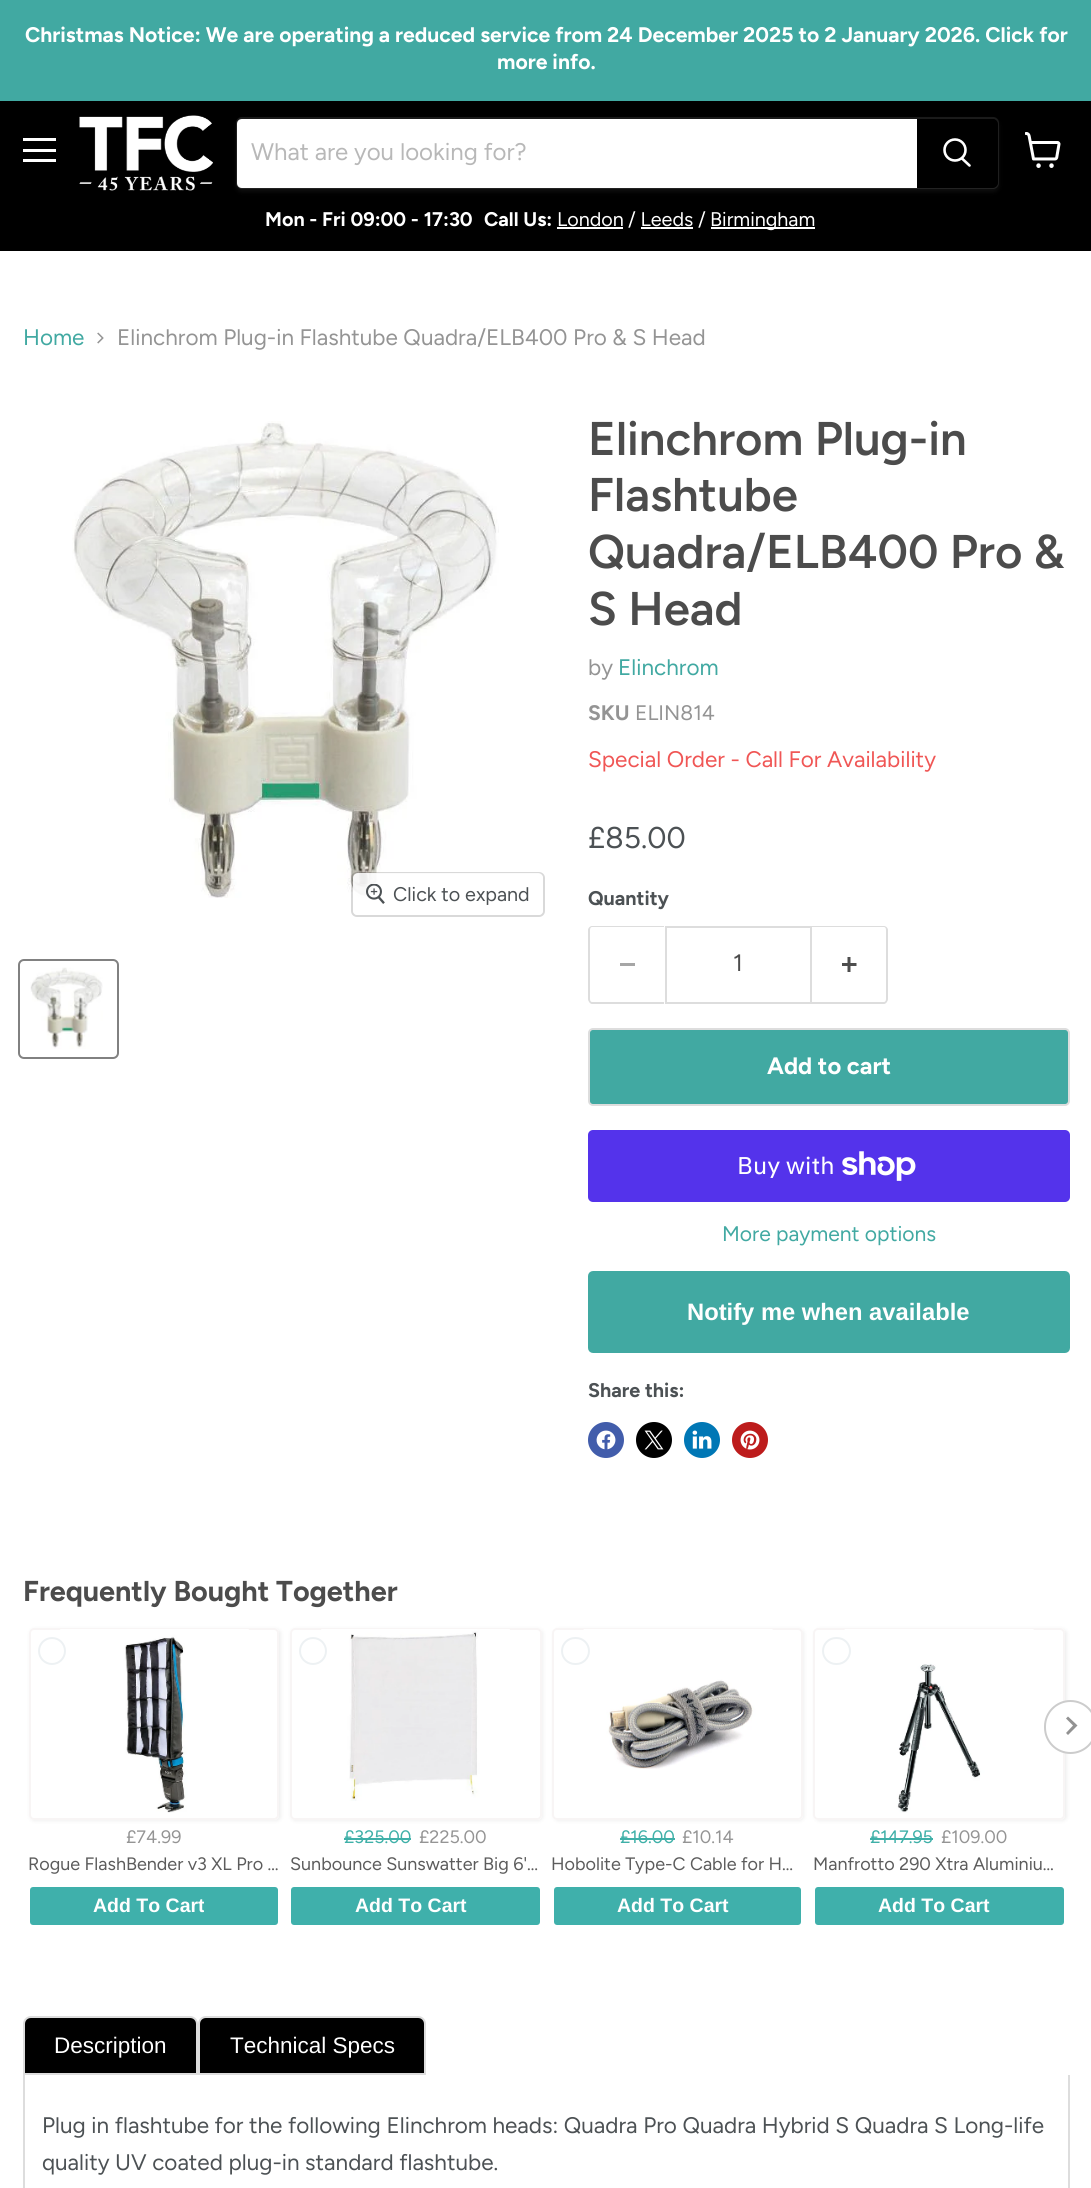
import math
import cairo



def rounded_rect(context, x, y, w, h, r):
    context.new_sub_path()
    for i, (u, v) in enumerate([(x + w - r, y + h - r), (x + r, y + h - r), (x + r, y + r), (x + w - r, y + r)]):
        context.arc(u, v, r, i * math.pi / 2, (i + 1) * math.pi / 2)
    context.close_path()


def draw_shadow(context, x, y, w, h, r, blur, alpha):
    context.push_group_with_content(cairo.Content.ALPHA)
    context.set_operator(cairo.Operator.SOURCE)
    for i in range(15, -16, -2):
        e = blur * i / 6
        if min(w, h) + 2 * e > 0:
            context.set_source_rgba(0, 0, 0, alpha * math.erfc((i - 1) / 8.5) / 2)
            rounded_rect(context, x - e, y - e, w + 2 * e, h + 2 * e, max(0, min(r + e + blur * .6, min(w, h) / 2 + e)))
            context.fill()
    context.mask(context.pop_group())


def draw_image(context, path, x, y, w, h):
    context.save()
    context.set_source_surface(cairo.ImageSurface.create_from_png(path), x, y)
    context.rectangle(x, y, w, h)
    context.fill()
    context.restore()


def draw(context):
    context.set_source_rgb(1, 1, 1)
    context.paint()
    context.set_source_rgb(65 / 255, 169 / 255, 162 / 255)
    context.rectangle(0, 0, 1091, 101)
    context.fill()
    context.set_source_rgb(0, 0, 0)
    context.rectangle(0, 101, 1091, 150)
    context.fill()
    context.set_source_rgb(1, 1, 1)
    context.rectangle(23, 138, 33, 3)
    context.fill()
    context.rectangle(23, 149, 33, 3)
    context.fill()
    context.rectangle(23, 159, 33, 3)
    context.fill()
    draw_image(context, "images/1.png", 79, 115, 134, 76)
    context.set_source_rgb(128 / 255, 128 / 255, 128 / 255)
    draw_shadow(context, 236, 120, 763, 72, 6, 2, 0.11)
    rounded_rect(context, 237, 118, 761, 70, 5)
    context.set_source_rgba(128 / 255, 128 / 255, 128 / 255, 0.2)
    context.stroke()
    context.set_source_rgb(1, 1, 1)
    context.new_path()
    context.move_to(242, 119)
    context.line_to(917, 119)
    context.line_to(917, 188)
    context.line_to(242, 188)
    context.curve_to(239, 188, 237, 186, 237, 183)
    context.line_to(237, 124)
    context.curve_to(237, 121, 239, 119, 242, 119)
    context.close_path()
    context.fill()
    context.set_source_rgb(0, 0, 0)
    context.new_path()
    context.move_to(918, 120)
    context.line_to(993, 120)
    context.curve_to(995, 120, 997, 122, 997, 124)
    context.line_to(997, 183)
    context.curve_to(997, 185, 995, 187, 993, 187)
    context.line_to(918, 187)
    context.close_path()
    context.fill_preserve()
    context.stroke()
    context.new_path()
    context.move_to(969.5, 165.5)
    context.line_to(962, 158.5)
    context.set_source_rgb(1, 1, 1)
    context.set_line_width(2.6)
    context.set_line_cap(cairo.LineCap.ROUND)
    context.stroke()
    context.arc(955, 150, 10.5, 0, 2 * math.pi)
    context.set_line_cap(cairo.LineCap.BUTT)
    context.stroke()
    context.rectangle(557, 227, 66, 2)
    context.fill()
    context.rectangle(641, 227, 52, 2)
    context.fill()
    context.rectangle(711, 227, 104, 2)
    context.fill()
    draw_image(context, "images/2.png", 1025, 132, 36, 36)
    draw_image(context, "images/3.png", 97, 332, 7, 12)
    draw_image(context, "images/4.png", 72, 421, 427, 477)
    rounded_rect(context, 352, 873, 192, 43, 5)
    context.set_source_rgba(0, 0, 0, 0.15)
    context.set_line_width(2)
    context.stroke()
    context.set_source_rgba(1, 1, 1, 0.9)
    rounded_rect(context, 353, 873, 190, 42, 5)
    context.fill()
    draw_image(context, "images/5.png", 366, 884, 19, 20)
    rounded_rect(context, 19, 960, 99, 98, 5)
    context.set_source_rgb(129 / 255, 129 / 255, 129 / 255)
    context.stroke()
    draw_image(context, "images/6.png", 30, 967, 73, 82)
    context.set_source_rgb(221 / 255, 221 / 255, 221 / 255)
    context.set_fill_rule(cairo.FillRule.EVEN_ODD)
    context.new_path()
    context.move_to(592, 926)
    context.line_to(664, 926)
    context.line_to(664, 1004)
    context.line_to(592, 1004)
    context.curve_to(590, 1004, 588, 1001, 588, 999)
    context.line_to(588, 930)
    context.curve_to(588, 928, 590, 926, 592, 926)
    context.close_path()
    context.move_to(592, 927)
    context.line_to(664, 927)
    context.line_to(664, 1002)
    context.line_to(592, 1002)
    context.curve_to(591, 1002, 590, 1001, 590, 999)
    context.line_to(590, 930)
    context.curve_to(590, 928, 591, 927, 592, 927)
    context.close_path()
    context.fill()
    context.set_source_rgb(166 / 255, 166 / 255, 166 / 255)
    context.rectangle(620, 963, 15, 3)
    context.fill()
    context.rectangle(666, 927, 145, 76)
    context.set_source_rgb(221 / 255, 221 / 255, 221 / 255)
    context.stroke()
    context.new_path()
    context.move_to(812, 926)
    context.line_to(884, 926)
    context.curve_to(886, 926, 888, 928, 888, 930)
    context.line_to(888, 999)
    context.curve_to(888, 1001, 886, 1004, 884, 1004)
    context.line_to(812, 1004)
    context.close_path()
    context.move_to(812, 927)
    context.line_to(884, 927)
    context.curve_to(885, 927, 886, 928, 886, 930)
    context.line_to(886, 999)
    context.curve_to(886, 1001, 885, 1002, 884, 1002)
    context.line_to(812, 1002)
    context.close_path()
    context.fill()
    draw_image(context, "images/7.png", 842, 957, 15, 15)
    context.set_source_rgb(65 / 255, 169 / 255, 162 / 255)
    rounded_rect(context, 589, 1029, 480, 76, 4)
    context.fill_preserve()
    context.set_source_rgb(221 / 255, 221 / 255, 221 / 255)
    context.stroke()
    context.set_source_rgb(84 / 255, 51 / 255, 235 / 255)
    rounded_rect(context, 588, 1130, 482, 72, 5)
    context.fill()
    draw_image(context, "images/8.png", 842, 1151, 74, 30)
    context.set_source_rgb(65 / 255, 169 / 255, 162 / 255)
    rounded_rect(context, 589.5, 1272.5, 479, 79, 3.5)
    context.fill_preserve()
    context.set_line_width(3)
    context.stroke()
    context.set_source_rgb(66 / 255, 93 / 255, 171 / 255)
    context.arc(606, 1440, 18, 0, 2 * math.pi)
    context.fill()
    draw_image(context, "images/9.png", 596, 1430, 20, 20)
    context.set_source_rgb(0, 0, 0)
    context.arc(654, 1440, 18, 0, 2 * math.pi)
    context.fill()
    draw_image(context, "images/10.png", 644, 1430, 20, 20)
    context.set_source_rgb(0, 119 / 255, 181 / 255)
    context.arc(702, 1440, 18, 0, 2 * math.pi)
    context.fill()
    draw_image(context, "images/11.png", 692, 1430, 20, 19)
    context.set_source_rgb(189 / 255, 28 / 255, 28 / 255)
    context.arc(750, 1440, 18, 0, 2 * math.pi)
    context.fill()
    draw_image(context, "images/12.png", 740, 1430, 20, 20)
    context.save()
    context.new_path()
    context.move_to(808, 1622)
    context.line_to(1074, 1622)
    context.line_to(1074, 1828)
    context.line_to(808, 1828)
    context.close_path()
    context.move_to(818, 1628)
    context.line_to(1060, 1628)
    context.curve_to(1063, 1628, 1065, 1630, 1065, 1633)
    context.line_to(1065, 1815)
    context.curve_to(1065, 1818, 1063, 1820, 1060, 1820)
    context.line_to(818, 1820)
    context.curve_to(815, 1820, 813, 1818, 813, 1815)
    context.line_to(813, 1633)
    context.curve_to(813, 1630, 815, 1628, 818, 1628)
    context.close_path()
    context.clip()
    context.set_source_rgb(146 / 255, 146 / 255, 146 / 255)
    draw_shadow(context, 815, 1629, 252, 192, 5, 2, 0.15)
    context.restore()
    rounded_rect(context, 814, 1629, 250, 190, 4)
    context.set_source_rgba(231 / 255, 222 / 255, 222 / 255, 0.3)
    context.set_line_width(2)
    context.stroke()
    context.set_source_rgb(1, 1, 1)
    rounded_rect(context, 1045, 1701, 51, 52, 25.5)
    context.fill_preserve()
    context.set_source_rgb(204 / 255, 204 / 255, 204 / 255)
    context.stroke()
    context.set_source_rgb(146 / 255, 146 / 255, 146 / 255)
    context.set_fill_rule(cairo.FillRule.WINDING)
    context.new_path()
    context.move_to(1068, 1716.5)
    context.line_to(1066, 1718.5)
    context.line_to(1073, 1725.5)
    context.line_to(1066, 1733)
    context.line_to(1068, 1735)
    context.line_to(1077.5, 1725.5)
    context.close_path()
    context.fill()
    context.save()
    context.set_fill_rule(cairo.FillRule.EVEN_ODD)
    context.new_path()
    context.move_to(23, 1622)
    context.line_to(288, 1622)
    context.line_to(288, 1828)
    context.line_to(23, 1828)
    context.close_path()
    context.move_to(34, 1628)
    context.line_to(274, 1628)
    context.curve_to(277, 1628, 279, 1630, 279, 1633)
    context.line_to(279, 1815)
    context.curve_to(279, 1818, 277, 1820, 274, 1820)
    context.line_to(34, 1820)
    context.curve_to(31, 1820, 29, 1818, 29, 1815)
    context.line_to(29, 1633)
    context.curve_to(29, 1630, 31, 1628, 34, 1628)
    context.close_path()
    context.clip()
    context.set_source_rgb(146 / 255, 146 / 255, 146 / 255)
    draw_shadow(context, 30, 1629, 251, 192, 5, 2, 0.15)
    context.restore()
    rounded_rect(context, 30, 1629, 248, 190, 4)
    context.set_source_rgba(231 / 255, 222 / 255, 222 / 255, 0.3)
    context.stroke()
    draw_image(context, "images/13.png", 60, 1629, 189, 184)
    context.arc(52, 1651, 13, 0, 2 * math.pi)
    context.set_source_rgb(237 / 255, 241 / 255, 243 / 255)
    context.stroke()
    context.set_source_rgb(63 / 255, 176 / 255, 171 / 255)
    rounded_rect(context, 30, 1887, 248, 38, 3)
    context.fill()
    context.save()
    context.set_fill_rule(cairo.FillRule.EVEN_ODD)
    context.new_path()
    context.move_to(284, 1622)
    context.line_to(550, 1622)
    context.line_to(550, 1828)
    context.line_to(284, 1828)
    context.close_path()
    context.move_to(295, 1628)
    context.line_to(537, 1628)
    context.curve_to(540, 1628, 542, 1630, 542, 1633)
    context.line_to(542, 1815)
    context.curve_to(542, 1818, 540, 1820, 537, 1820)
    context.line_to(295, 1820)
    context.curve_to(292, 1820, 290, 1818, 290, 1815)
    context.line_to(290, 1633)
    context.curve_to(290, 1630, 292, 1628, 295, 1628)
    context.close_path()
    context.clip()
    context.set_source_rgb(146 / 255, 146 / 255, 146 / 255)
    draw_shadow(context, 291, 1629, 252, 192, 5, 2, 0.15)
    context.restore()
    rounded_rect(context, 291, 1629, 250, 190, 4)
    context.set_source_rgba(231 / 255, 222 / 255, 222 / 255, 0.3)
    context.stroke()
    draw_image(context, "images/14.png", 321, 1629, 189, 172)
    context.arc(313, 1651, 13, 0, 2 * math.pi)
    context.set_source_rgb(237 / 255, 241 / 255, 243 / 255)
    context.stroke()
    context.set_source_rgb(63 / 255, 176 / 255, 168 / 255)
    context.rectangle(344, 1838, 67, 2)
    context.fill()
    context.set_source_rgb(63 / 255, 176 / 255, 171 / 255)
    rounded_rect(context, 291, 1887, 249, 38, 3)
    context.fill()
    context.save()
    context.set_fill_rule(cairo.FillRule.EVEN_ODD)
    context.new_path()
    context.move_to(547, 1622)
    context.line_to(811, 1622)
    context.line_to(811, 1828)
    context.line_to(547, 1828)
    context.close_path()
    context.move_to(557, 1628)
    context.line_to(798, 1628)
    context.curve_to(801, 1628, 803, 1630, 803, 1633)
    context.line_to(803, 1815)
    context.curve_to(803, 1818, 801, 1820, 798, 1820)
    context.line_to(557, 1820)
    context.curve_to(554, 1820, 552, 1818, 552, 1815)
    context.line_to(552, 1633)
    context.curve_to(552, 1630, 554, 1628, 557, 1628)
    context.close_path()
    context.clip()
    context.set_source_rgb(146 / 255, 146 / 255, 146 / 255)
    draw_shadow(context, 554, 1629, 250, 192, 5, 2, 0.15)
    context.restore()
    rounded_rect(context, 553, 1629, 249, 190, 4)
    context.set_source_rgba(231 / 255, 222 / 255, 222 / 255, 0.3)
    context.stroke()
    draw_image(context, "images/15.png", 583, 1629, 190, 140)
    rounded_rect(context, 562, 1638, 27, 26, 13)
    context.set_source_rgb(237 / 255, 241 / 255, 243 / 255)
    context.stroke()
    context.set_source_rgb(63 / 255, 176 / 255, 168 / 255)
    context.rectangle(620, 1838, 55, 2)
    context.fill()
    context.set_source_rgb(63 / 255, 176 / 255, 171 / 255)
    rounded_rect(context, 554, 1887, 247, 38, 3)
    context.fill()
    draw_image(context, "images/16.png", 844, 1629, 190, 184)
    rounded_rect(context, 823, 1638, 27, 26, 13)
    context.set_source_rgb(237 / 255, 241 / 255, 243 / 255)
    context.stroke()
    context.set_source_rgb(63 / 255, 176 / 255, 168 / 255)
    context.rectangle(870, 1838, 63, 2)
    context.fill()
    context.set_source_rgb(63 / 255, 176 / 255, 171 / 255)
    rounded_rect(context, 815, 1887, 249, 38, 3)
    context.fill()
    context.set_source_rgb(0, 0, 0)
    context.new_path()
    context.move_to(31, 2017)
    context.line_to(190, 2017)
    context.curve_to(194, 2017, 197, 2020, 197, 2024)
    context.line_to(197, 2074)
    context.line_to(24, 2074)
    context.line_to(24, 2024)
    context.curve_to(24, 2020, 27, 2017, 31, 2017)
    context.close_path()
    context.fill_preserve()
    context.set_source_rgb(221 / 255, 221 / 255, 221 / 255)
    context.stroke()
    context.set_source_rgb(0, 0, 0)
    context.new_path()
    context.move_to(206, 2017)
    context.line_to(418, 2017)
    context.curve_to(422, 2017, 425, 2020, 425, 2024)
    context.line_to(425, 2074)
    context.line_to(199, 2074)
    context.line_to(199, 2024)
    context.curve_to(199, 2020, 202, 2017, 206, 2017)
    context.close_path()
    context.fill_preserve()
    context.set_source_rgb(221 / 255, 221 / 255, 221 / 255)
    context.stroke()
    context.rectangle(1068, 2075, 2, 113)
    context.fill()
    context.rectangle(23, 2075, 2, 113)
    context.fill()
    context.select_font_face("Figtree", cairo.FontSlant.NORMAL, cairo.FontWeight.BOLD)
    context.set_font_size(21.1)
    context.set_source_rgb(1, 1, 1)
    context.move_to(25, 42)
    context.show_text("Christmas Notice: We are operating a reduced service from 24 December 2025 to 2 January 2026. Click for")
    context.move_to(497, 69)
    context.show_text("more info.")
    context.select_font_face("Figtree")
    context.set_font_size(24)
    context.set_source_rgb(184 / 255, 184 / 255, 184 / 255)
    context.move_to(251, 160)
    context.show_text("What are you looking for?")
    context.select_font_face("Figtree", cairo.FontSlant.NORMAL, cairo.FontWeight.BOLD)
    context.set_font_size(19.75)
    context.set_source_rgb(1, 1, 1)
    context.move_to(265, 226)
    context.show_text("Mon - Fri 09:00 - 17:30")
    context.move_to(484, 226)
    context.show_text("Call Us:")
    context.select_font_face("Figtree")
    context.move_to(557, 226)
    context.show_text("London")
    context.move_to(628, 226)
    context.show_text("/ Leeds")
    context.move_to(698, 226)
    context.show_text("/")
    context.move_to(710, 226)
    context.show_text("Birmingham")
    context.set_font_size(22.5)
    context.set_source_rgb(65 / 255, 169 / 255, 162 / 255)
    context.move_to(23, 345)
    context.show_text("Home")
    context.set_source_rgb(148 / 255, 148 / 255, 148 / 255)
    context.move_to(117, 345)
    context.show_text("Elinchrom Plug-in Flashtube Quadra/ELB400 Pro & S Head")
    context.set_font_size(19.75)
    context.set_source_rgb(76 / 255, 81 / 255, 84 / 255)
    context.move_to(393, 901)
    context.show_text("Click to expand")
    context.select_font_face("Figtree SemiBold")
    context.set_font_size(47.25)
    context.set_source_rgb(76 / 255, 76 / 255, 76 / 255)
    context.move_to(588, 455)
    context.show_text("Elinchrom Plug-in")
    context.move_to(588, 511)
    context.show_text("Flashtube")
    context.move_to(588, 568)
    context.show_text("Quadra/ELB400 Pro &")
    context.move_to(588, 625)
    context.show_text("S Head")
    context.select_font_face("Figtree")
    context.set_font_size(22.5)
    context.set_source_rgb(148 / 255, 148 / 255, 148 / 255)
    context.move_to(588, 675)
    context.show_text("by")
    context.set_source_rgb(65 / 255, 169 / 255, 162 / 255)
    context.move_to(618, 675)
    context.show_text("Elinchrom")
    context.select_font_face("Figtree", cairo.FontSlant.NORMAL, cairo.FontWeight.BOLD)
    context.set_font_size(21)
    context.set_source_rgb(148 / 255, 148 / 255, 148 / 255)
    context.move_to(588, 720)
    context.show_text("SKU")
    context.select_font_face("Figtree")
    context.move_to(635, 720)
    context.show_text("ELIN814")
    context.set_font_size(22.5)
    context.set_source_rgb(240 / 255, 86 / 255, 85 / 255)
    context.move_to(588, 767)
    context.show_text("Special Order - Call For Availability")
    context.set_font_size(30)
    context.set_source_rgb(76 / 255, 81 / 255, 84 / 255)
    context.move_to(588, 848)
    context.show_text("£85.00")
    context.select_font_face("Figtree", cairo.FontSlant.NORMAL, cairo.FontWeight.BOLD)
    context.set_font_size(19.75)
    context.move_to(588, 905)
    context.show_text("Quantity")
    context.select_font_face("Figtree")
    context.set_font_size(23.75)
    context.set_source_rgb(76 / 255, 76 / 255, 76 / 255)
    context.move_to(733, 971)
    context.show_text("1")
    context.select_font_face("Figtree", cairo.FontSlant.NORMAL, cairo.FontWeight.BOLD)
    context.set_source_rgb(1, 1, 1)
    context.move_to(767, 1074)
    context.show_text("Add to cart")
    context.select_font_face("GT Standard")
    context.set_font_size(24)
    context.move_to(737, 1174)
    context.show_text("Buy with")
    context.select_font_face("Figtree")
    context.set_font_size(21.1)
    context.set_source_rgb(65 / 255, 169 / 255, 162 / 255)
    context.move_to(722, 1241)
    context.show_text("More payment options")
    context.select_font_face("Liberation Sans", cairo.FontSlant.NORMAL, cairo.FontWeight.BOLD)
    context.set_font_size(23.75)
    context.set_source_rgb(1, 1, 1)
    context.move_to(687, 1320)
    context.show_text("Notify me when available")
    context.select_font_face("Figtree", cairo.FontSlant.NORMAL, cairo.FontWeight.BOLD)
    context.set_font_size(19.75)
    context.set_source_rgb(76 / 255, 81 / 255, 84 / 255)
    context.move_to(588, 1397)
    context.show_text("Share this:")
    context.set_font_size(28.75)
    context.set_source_rgb(76 / 255, 76 / 255, 76 / 255)
    context.move_to(23, 1601)
    context.show_text("Frequently Bought Together")
    context.select_font_face("Figtree")
    context.set_font_size(18)
    context.set_source_rgb(148 / 255, 148 / 255, 148 / 255)
    context.move_to(126, 1843)
    context.show_text("£74.99")
    context.set_source_rgb(92 / 255, 92 / 255, 92 / 255)
    context.move_to(28, 1870)
    context.show_text("Rogue FlashBender v3 XL Pro …")
    context.save()
    context.rectangle(93, 1895, 111, 22)
    context.clip()
    context.select_font_face("Liberation Sans", cairo.FontSlant.NORMAL, cairo.FontWeight.BOLD)
    context.set_font_size(19.5)
    context.set_source_rgb(1, 1, 1)
    context.move_to(93, 1912)
    context.show_text("Add To Cart")
    context.restore()
    context.set_source_rgb(63 / 255, 176 / 255, 168 / 255)
    context.move_to(344, 1843)
    context.show_text("£325.00")
    context.set_source_rgb(148 / 255, 148 / 255, 148 / 255)
    context.move_to(419, 1843)
    context.show_text("£225.00")
    context.set_source_rgb(92 / 255, 92 / 255, 92 / 255)
    context.move_to(290, 1870)
    context.show_text("Sunbounce Sunswatter Big 6'…")
    context.select_font_face("Liberation Sans", cairo.FontSlant.NORMAL, cairo.FontWeight.BOLD)
    context.set_font_size(19.5)
    context.set_source_rgb(1, 1, 1)
    context.move_to(355, 1912)
    context.show_text("Add To Cart")
    context.select_font_face("Figtree")
    context.set_font_size(18)
    context.set_source_rgb(63 / 255, 176 / 255, 168 / 255)
    context.move_to(620, 1843)
    context.show_text("£16.00")
    context.set_source_rgb(148 / 255, 148 / 255, 148 / 255)
    context.move_to(682, 1843)
    context.show_text("£10.14")
    context.set_source_rgb(92 / 255, 92 / 255, 92 / 255)
    context.move_to(551, 1870)
    context.show_text("Hobolite Type-C Cable for H…")
    context.select_font_face("Liberation Sans", cairo.FontSlant.NORMAL, cairo.FontWeight.BOLD)
    context.set_font_size(19.5)
    context.set_source_rgb(1, 1, 1)
    context.move_to(617, 1912)
    context.show_text("Add To Cart")
    context.select_font_face("Figtree")
    context.set_font_size(18)
    context.set_source_rgb(63 / 255, 176 / 255, 168 / 255)
    context.move_to(870, 1843)
    context.show_text("£147.95")
    context.set_source_rgb(148 / 255, 148 / 255, 148 / 255)
    context.move_to(941, 1843)
    context.show_text("£109.00")
    context.set_source_rgb(92 / 255, 92 / 255, 92 / 255)
    context.move_to(813, 1870)
    context.show_text("Manfrotto 290 Xtra Aluminiu…")
    context.select_font_face("Liberation Sans", cairo.FontSlant.NORMAL, cairo.FontWeight.BOLD)
    context.set_font_size(19.5)
    context.set_source_rgb(1, 1, 1)
    context.move_to(878, 1912)
    context.show_text("Add To Cart")
    context.select_font_face("Liberation Sans")
    context.set_font_size(22.5)
    context.move_to(54, 2053)
    context.show_text("Description")
    context.move_to(230, 2053)
    context.show_text("Technical Specs")
    context.select_font_face("Figtree")
    context.set_source_rgb(76 / 255, 81 / 255, 84 / 255)
    context.move_to(42, 2133)
    context.show_text("Plug in flashtube for the following Elinchrom heads: Quadra Pro Quadra Hybrid S Quadra S Long-life")
    context.move_to(42, 2170)
    context.show_text("quality UV coated plug-in standard flashtube.")


surface = cairo.ImageSurface(cairo.Format.RGB24, 1091, 2188)
context = cairo.Context(surface)
options = cairo.FontOptions()
options.set_hint_metrics(cairo.HintMetrics.OFF)
options.set_hint_style(cairo.HintStyle.NONE)
context.set_font_options(options)
context.set_miter_limit(4)
draw(context)
surface.write_to_png("out.png")
